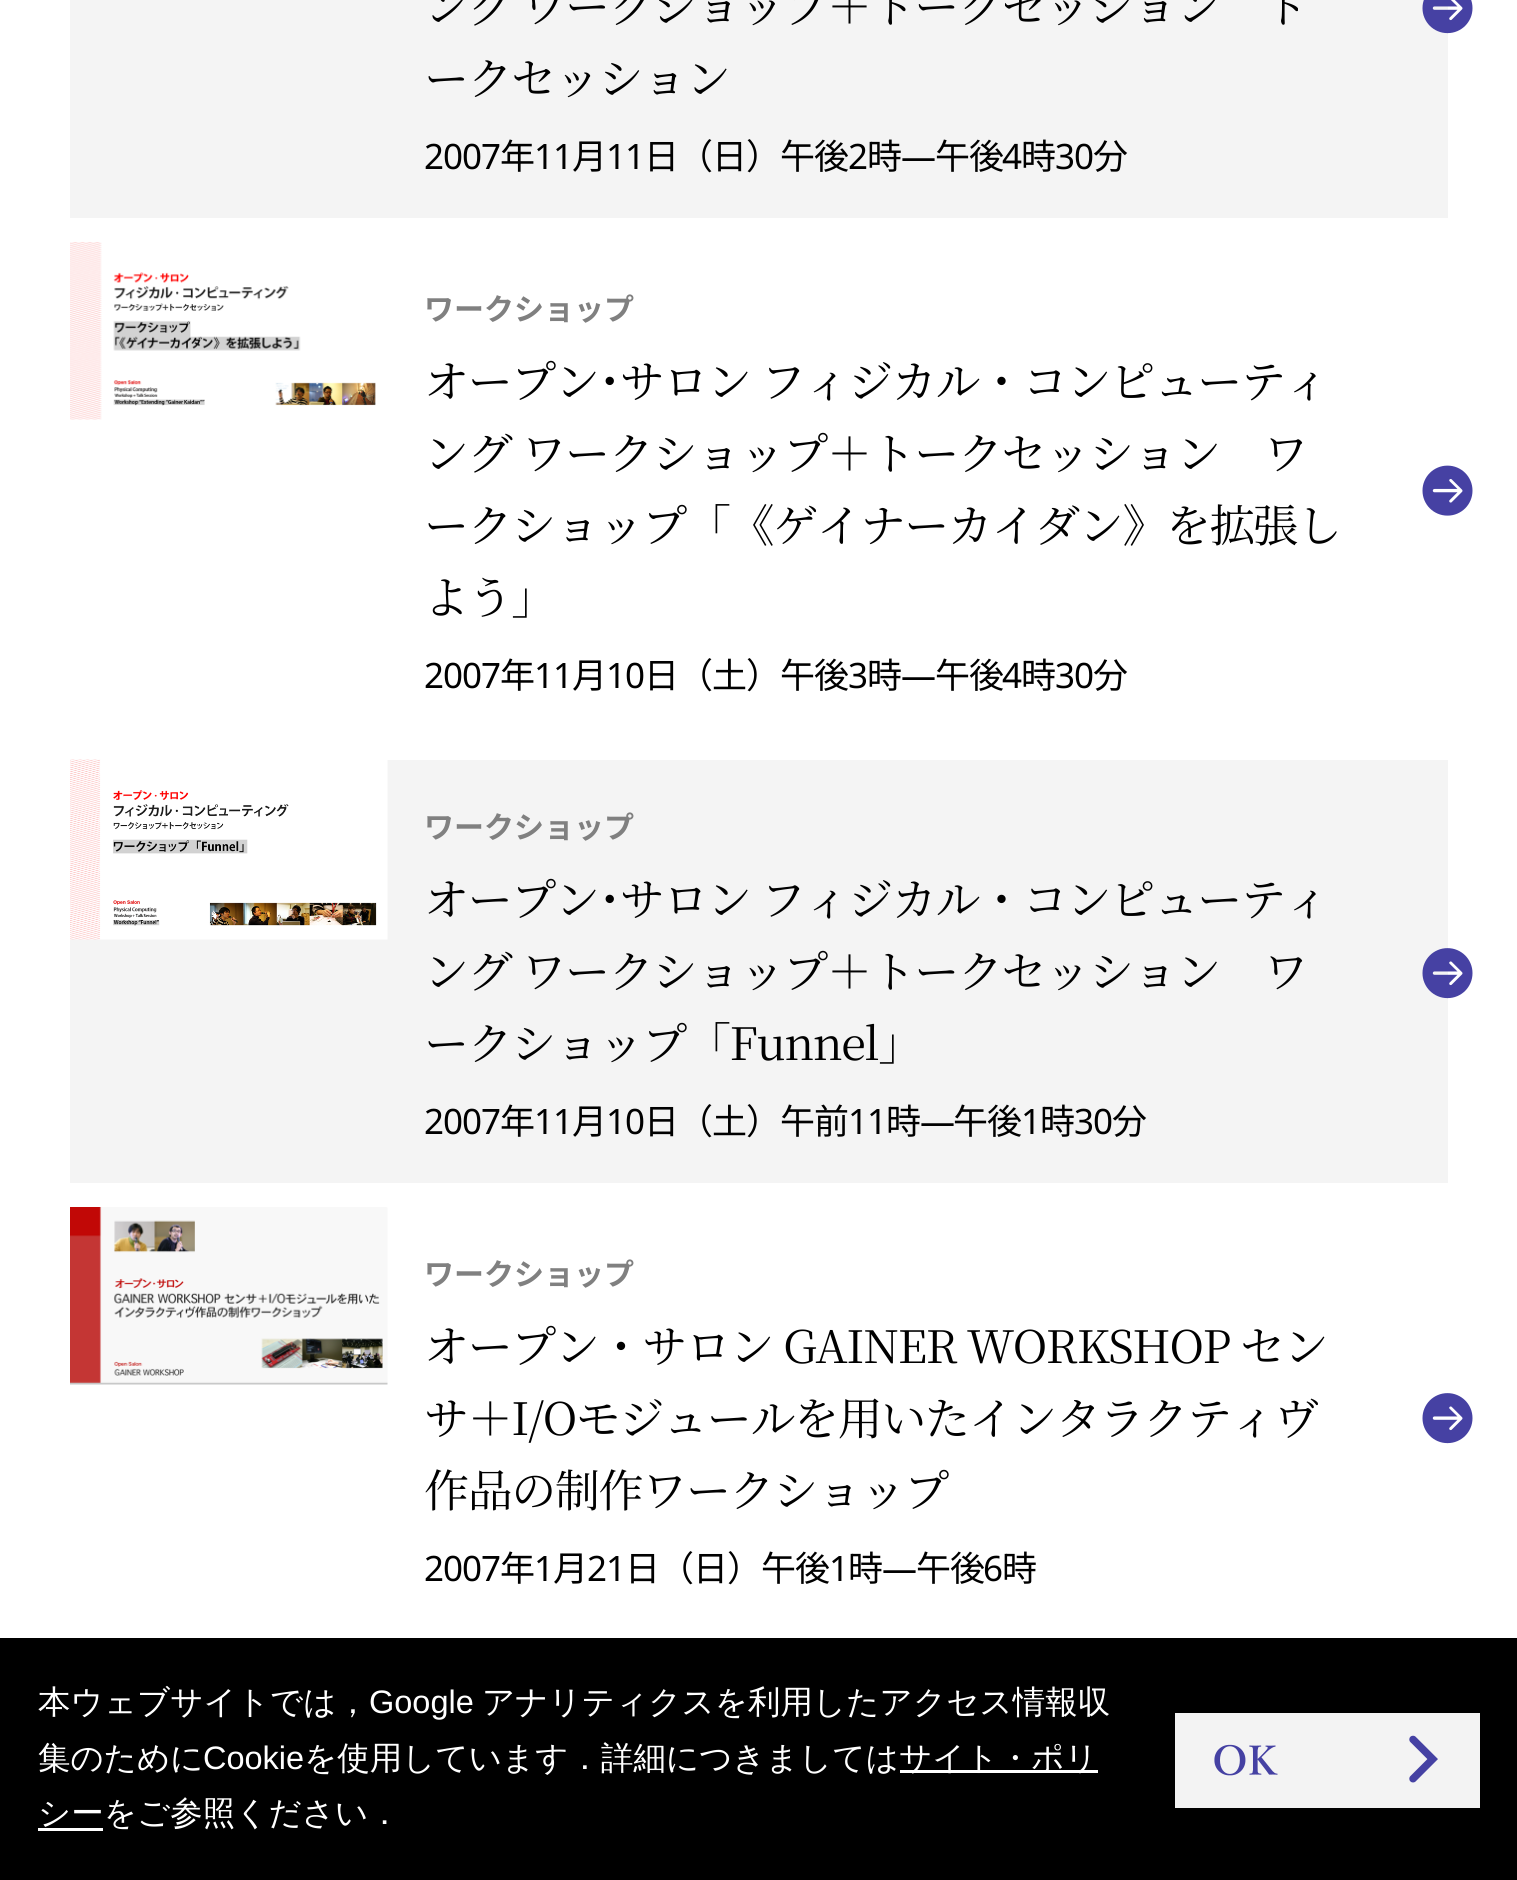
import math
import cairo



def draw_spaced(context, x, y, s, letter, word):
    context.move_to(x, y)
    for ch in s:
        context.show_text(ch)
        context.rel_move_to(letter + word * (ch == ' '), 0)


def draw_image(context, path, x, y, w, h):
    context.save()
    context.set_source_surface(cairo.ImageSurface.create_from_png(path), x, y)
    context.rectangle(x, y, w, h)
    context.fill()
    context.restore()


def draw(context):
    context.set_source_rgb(1, 1, 1)
    context.paint()
    context.set_source_rgb(244 / 255, 244 / 255, 244 / 255)
    context.rectangle(70, 0, 1378, 218)
    context.fill()
    draw_image(context, "images/1.png", 1422, 0, 51, 34)
    draw_image(context, "images/2.png", 70, 242, 306, 178)
    draw_image(context, "images/3.png", 1422, 465, 51, 51)
    context.rectangle(70, 760, 1378, 423)
    context.fill()
    draw_image(context, "images/4.png", 70, 759, 318, 181)
    draw_image(context, "images/5.png", 1422, 948, 51, 51)
    draw_image(context, "images/6.png", 70, 1207, 318, 178)
    draw_image(context, "images/7.png", 1422, 1393, 51, 51)
    context.set_source_rgb(0, 0, 0)
    context.rectangle(0, 1638, 1517, 242)
    context.fill()
    context.set_source_rgb(1, 1, 1)
    context.rectangle(900, 1770, 198, 3)
    context.fill()
    context.rectangle(38, 1828, 65, 3)
    context.fill()
    draw_image(context, "images/8.png", 1175, 1713, 305, 95)
    context.select_font_face("Noto Serif JP")
    context.set_font_size(45)
    context.set_source_rgb(0, 0, 0)
    draw_spaced(context, 424, 23, "ング ワークショップ＋トークセッション　ト", -1.35, 0)
    draw_spaced(context, 424, 95, "ークセッション", -1.35, 0)
    context.select_font_face("Noto Sans")
    context.set_font_size(35)
    draw_spaced(context, 424, 169, "2007", -1, 0)
    context.select_font_face("Noto Sans JP")
    draw_spaced(context, 500, 169, "年", -1, 0)
    context.select_font_face("Noto Sans")
    draw_spaced(context, 534, 169, "11", -1, 0)
    context.select_font_face("Noto Sans JP")
    draw_spaced(context, 572, 169, "月", -1, 0)
    context.select_font_face("Noto Sans")
    draw_spaced(context, 606, 169, "11", -1, 0)
    context.select_font_face("Noto Sans JP")
    draw_spaced(context, 644, 169, "日（日）午後", -1, 0)
    context.select_font_face("Noto Sans")
    draw_spaced(context, 848, 169, "2", -1, 0)
    context.select_font_face("Noto Sans JP")
    draw_spaced(context, 867, 169, "時", -1, 0)
    context.select_font_face("Noto Sans")
    draw_spaced(context, 901, 169, "—", -1, 0)
    context.select_font_face("Noto Sans JP")
    draw_spaced(context, 935, 169, "午後", -1, 0)
    context.select_font_face("Noto Sans")
    draw_spaced(context, 1002, 169, "4", -1, 0)
    context.select_font_face("Noto Sans JP")
    draw_spaced(context, 1021, 169, "時", -1, 0)
    context.select_font_face("Noto Sans")
    draw_spaced(context, 1055, 169, "30", -1, 0)
    context.select_font_face("Noto Sans JP")
    draw_spaced(context, 1093, 169, "分", -1, 0)
    context.select_font_face("Noto Sans JP", cairo.FontSlant.NORMAL, cairo.FontWeight.BOLD)
    context.set_font_size(30)
    context.set_source_rgb(128 / 255, 128 / 255, 128 / 255)
    context.move_to(424, 320)
    context.show_text("ワークショップ")
    context.select_font_face("Noto Serif JP")
    context.set_font_size(45)
    context.set_source_rgb(0, 0, 0)
    draw_spaced(context, 424, 398, "オープン･サロン フィジカル・コンピューティ", -1.35, 0)
    draw_spaced(context, 424, 470, "ング ワークショップ＋トークセッション　ワ", -1.35, 0)
    draw_spaced(context, 424, 542, "ークショップ「《ゲイナーカイダン》を拡張し", -1.35, 0)
    draw_spaced(context, 424, 614, "よう」", -1.35, 0)
    context.select_font_face("Noto Sans")
    context.set_font_size(35)
    draw_spaced(context, 424, 688, "2007", -1, 0)
    context.select_font_face("Noto Sans JP")
    draw_spaced(context, 500, 688, "年", -1, 0)
    context.select_font_face("Noto Sans")
    draw_spaced(context, 534, 688, "11", -1, 0)
    context.select_font_face("Noto Sans JP")
    draw_spaced(context, 572, 688, "月", -1, 0)
    context.select_font_face("Noto Sans")
    draw_spaced(context, 606, 688, "10", -1, 0)
    context.select_font_face("Noto Sans JP")
    draw_spaced(context, 644, 688, "日（土）午後", -1, 0)
    context.select_font_face("Noto Sans")
    draw_spaced(context, 848, 688, "3", -1, 0)
    context.select_font_face("Noto Sans JP")
    draw_spaced(context, 867, 688, "時", -1, 0)
    context.select_font_face("Noto Sans")
    draw_spaced(context, 901, 688, "—", -1, 0)
    context.select_font_face("Noto Sans JP")
    draw_spaced(context, 935, 688, "午後", -1, 0)
    context.select_font_face("Noto Sans")
    draw_spaced(context, 1002, 688, "4", -1, 0)
    context.select_font_face("Noto Sans JP")
    draw_spaced(context, 1021, 688, "時", -1, 0)
    context.select_font_face("Noto Sans")
    draw_spaced(context, 1055, 688, "30", -1, 0)
    context.select_font_face("Noto Sans JP")
    draw_spaced(context, 1093, 688, "分", -1, 0)
    context.select_font_face("Noto Sans JP", cairo.FontSlant.NORMAL, cairo.FontWeight.BOLD)
    context.set_font_size(30)
    context.set_source_rgb(128 / 255, 128 / 255, 128 / 255)
    context.move_to(424, 838)
    context.show_text("ワークショップ")
    context.select_font_face("Noto Serif JP")
    context.set_font_size(45)
    context.set_source_rgb(0, 0, 0)
    draw_spaced(context, 424, 916, "オープン･サロン フィジカル・コンピューティ", -1.35, 0)
    draw_spaced(context, 424, 988, "ング ワークショップ＋トークセッション　ワ", -1.35, 0)
    draw_spaced(context, 424, 1060, "ークショップ「Funnel」", -1.35, 0)
    context.select_font_face("Noto Sans")
    context.set_font_size(35)
    draw_spaced(context, 424, 1134, "2007", -1, 0)
    context.select_font_face("Noto Sans JP")
    draw_spaced(context, 500, 1134, "年", -1, 0)
    context.select_font_face("Noto Sans")
    draw_spaced(context, 534, 1134, "11", -1, 0)
    context.select_font_face("Noto Sans JP")
    draw_spaced(context, 572, 1134, "月", -1, 0)
    context.select_font_face("Noto Sans")
    draw_spaced(context, 606, 1134, "10", -1, 0)
    context.select_font_face("Noto Sans JP")
    draw_spaced(context, 644, 1134, "日（土）午前", -1, 0)
    context.select_font_face("Noto Sans")
    draw_spaced(context, 848, 1134, "11", -1, 0)
    context.select_font_face("Noto Sans JP")
    draw_spaced(context, 886, 1134, "時", -1, 0)
    context.select_font_face("Noto Sans")
    draw_spaced(context, 920, 1134, "—", -1, 0)
    context.select_font_face("Noto Sans JP")
    draw_spaced(context, 953, 1134, "午後", -1, 0)
    context.select_font_face("Noto Sans")
    draw_spaced(context, 1021, 1134, "1", -1, 0)
    context.select_font_face("Noto Sans JP")
    draw_spaced(context, 1040, 1134, "時", -1, 0)
    context.select_font_face("Noto Sans")
    draw_spaced(context, 1074, 1134, "30", -1, 0)
    context.select_font_face("Noto Sans JP")
    draw_spaced(context, 1112, 1134, "分", -1, 0)
    context.select_font_face("Noto Sans JP", cairo.FontSlant.NORMAL, cairo.FontWeight.BOLD)
    context.set_font_size(30)
    context.set_source_rgb(128 / 255, 128 / 255, 128 / 255)
    context.move_to(424, 1285)
    context.show_text("ワークショップ")
    context.select_font_face("Noto Serif JP")
    context.set_font_size(45)
    context.set_source_rgb(0, 0, 0)
    draw_spaced(context, 424, 1363, "オープン・サロン GAINER WORKSHOP セン", -1.35, 0)
    draw_spaced(context, 424, 1435, "サ＋I/Oモジュールを用いたインタラクティヴ", -1.35, 0)
    draw_spaced(context, 424, 1507, "作品の制作ワークショップ", -1.35, 0)
    context.select_font_face("Noto Sans")
    context.set_font_size(35)
    draw_spaced(context, 424, 1581, "2007", -1, 0)
    context.select_font_face("Noto Sans JP")
    draw_spaced(context, 500, 1581, "年", -1, 0)
    context.select_font_face("Noto Sans")
    draw_spaced(context, 534, 1581, "1", -1, 0)
    context.select_font_face("Noto Sans JP")
    draw_spaced(context, 553, 1581, "月", -1, 0)
    context.select_font_face("Noto Sans")
    draw_spaced(context, 587, 1581, "21", -1, 0)
    context.select_font_face("Noto Sans JP")
    draw_spaced(context, 625, 1581, "日（日）午後", -1, 0)
    context.select_font_face("Noto Sans")
    draw_spaced(context, 829, 1581, "1", -1, 0)
    context.select_font_face("Noto Sans JP")
    draw_spaced(context, 848, 1581, "時", -1, 0)
    context.select_font_face("Noto Sans")
    draw_spaced(context, 882, 1581, "—", -1, 0)
    context.select_font_face("Noto Sans JP")
    draw_spaced(context, 916, 1581, "午後", -1, 0)
    context.select_font_face("Noto Sans")
    draw_spaced(context, 983, 1581, "6", -1, 0)
    context.select_font_face("Noto Sans JP")
    draw_spaced(context, 1002, 1581, "時", -1, 0)
    context.select_font_face("WenQuanYi Zen Hei Medium")
    context.set_font_size(32.5)
    context.set_source_rgb(1, 1, 1)
    context.move_to(38, 1713)
    context.show_text("本ウェブサイトでは，")
    context.select_font_face("Liberation Sans")
    context.move_to(369, 1713)
    context.show_text("Google")
    context.select_font_face("WenQuanYi Zen Hei Medium")
    context.move_to(482, 1713)
    context.show_text("アナリティクスを利用したアクセス情報収")
    context.move_to(38, 1769)
    context.show_text("集のために")
    context.select_font_face("Liberation Sans")
    context.move_to(203, 1769)
    context.show_text("Cookie")
    context.select_font_face("WenQuanYi Zen Hei Medium")
    context.move_to(304, 1769)
    context.show_text("を使用しています．詳細につきましては")
    context.move_to(899, 1769)
    context.show_text("サイト・ポリ")
    context.move_to(38, 1824)
    context.show_text("シーをご参照ください．")


surface = cairo.ImageSurface(cairo.Format.RGB24, 1517, 1880)
context = cairo.Context(surface)
options = cairo.FontOptions()
options.set_hint_metrics(cairo.HintMetrics.OFF)
options.set_hint_style(cairo.HintStyle.NONE)
context.set_font_options(options)
context.set_miter_limit(4)
draw(context)
surface.write_to_png("out.png")
